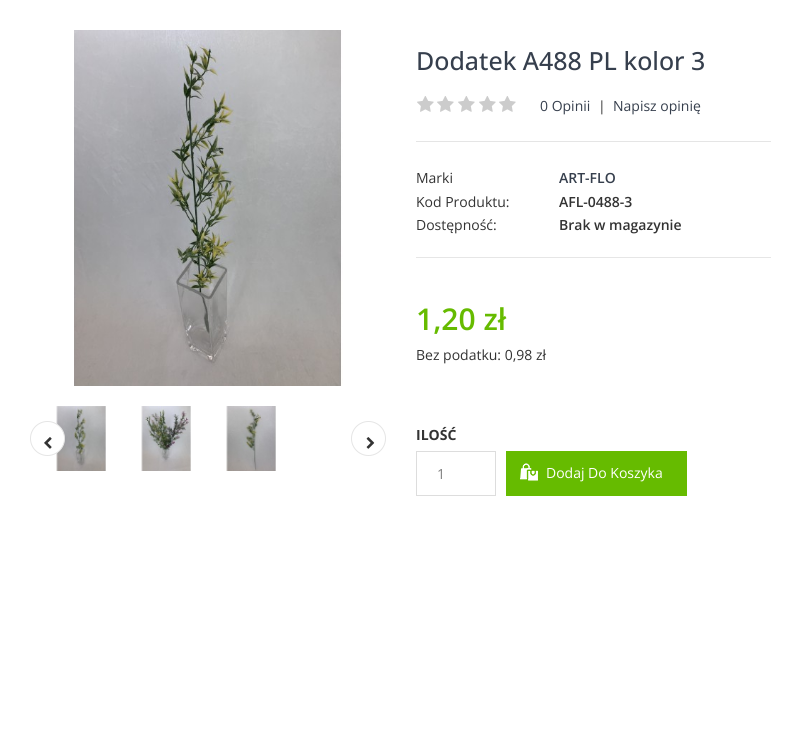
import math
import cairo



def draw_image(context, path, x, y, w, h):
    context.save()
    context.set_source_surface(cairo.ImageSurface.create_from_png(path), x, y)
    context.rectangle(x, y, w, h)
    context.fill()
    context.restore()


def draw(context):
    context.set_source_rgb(1, 1, 1)
    context.paint()
    draw_image(context, "images/1.png", 74, 30, 269, 356)
    draw_image(context, "images/2.png", 56, 406, 50, 65)
    draw_image(context, "images/3.png", 141, 406, 50, 65)
    draw_image(context, "images/4.png", 226, 406, 50, 65)
    context.set_source_rgb(1, 1, 1)
    context.arc(47.5, 438.5, 17, 0, 2 * math.pi)
    context.fill_preserve()
    context.set_source_rgb(229 / 255, 229 / 255, 229 / 255)
    context.set_line_width(1)
    context.stroke()
    draw_image(context, "images/5.png", 44, 437, 8, 12)
    context.arc(368.5, 438.5, 17, 0, 2 * math.pi)
    context.stroke()
    draw_image(context, "images/6.png", 366, 437, 9, 12)
    context.rectangle(416, 141, 355, 1)
    context.fill()
    draw_image(context, "images/7.png", 417, 96, 17, 16)
    draw_image(context, "images/7.png", 437, 96, 17, 16)
    draw_image(context, "images/7.png", 458, 96, 17, 16)
    draw_image(context, "images/7.png", 479, 96, 17, 16)
    draw_image(context, "images/7.png", 499, 96, 17, 16)
    context.set_source_rgb(230 / 255, 230 / 255, 230 / 255)
    context.rectangle(416, 257, 355, 1)
    context.fill()
    context.rectangle(416.5, 451.5, 79, 44)
    context.set_source_rgb(221 / 255, 221 / 255, 221 / 255)
    context.stroke()
    context.set_source_rgb(102 / 255, 187 / 255, 0)
    context.rectangle(506, 451, 181, 45)
    context.fill()
    draw_image(context, "images/8.png", 520, 463, 18, 18)
    context.select_font_face("Open Sans Medium")
    context.set_font_size(25)
    context.set_source_rgb(54 / 255, 63 / 255, 77 / 255)
    context.move_to(416, 70)
    context.show_text("Dodatek A488 PL kolor 3")
    context.select_font_face("Open Sans")
    context.set_font_size(14)
    context.move_to(540, 111)
    context.show_text("0 Opinii")
    context.set_source_rgb(51 / 255, 51 / 255, 51 / 255)
    context.move_to(598, 111)
    context.show_text("|")
    context.set_source_rgb(54 / 255, 63 / 255, 77 / 255)
    context.move_to(613, 111)
    context.show_text("Napisz opinię")
    context.set_source_rgb(51 / 255, 51 / 255, 51 / 255)
    context.move_to(416, 183)
    context.show_text("Marki")
    context.select_font_face("Open Sans SemiBold")
    context.set_source_rgb(54 / 255, 63 / 255, 77 / 255)
    context.move_to(559, 183)
    context.show_text("ART-FLO")
    context.select_font_face("Open Sans")
    context.set_source_rgb(51 / 255, 51 / 255, 51 / 255)
    context.move_to(416, 207)
    context.show_text("Kod Produktu:")
    context.select_font_face("Open Sans SemiBold")
    context.move_to(559, 207)
    context.show_text("AFL-0488-3")
    context.select_font_face("Open Sans")
    context.move_to(416, 230)
    context.show_text("Dostępność:")
    context.select_font_face("Open Sans SemiBold")
    context.move_to(559, 230)
    context.show_text("Brak w magazynie")
    context.set_font_size(30)
    context.set_source_rgb(102 / 255, 187 / 255, 0)
    context.move_to(416, 330)
    context.show_text("1,20 zł")
    context.select_font_face("Open Sans")
    context.set_font_size(14)
    context.set_source_rgb(51 / 255, 51 / 255, 51 / 255)
    context.move_to(416, 360)
    context.show_text("Bez podatku: 0,98 zł")
    context.select_font_face("Open Sans", cairo.FontSlant.NORMAL, cairo.FontWeight.BOLD)
    context.move_to(416, 440)
    context.show_text("ILOŚĆ")
    context.select_font_face("Open Sans")
    context.set_source_rgb(128 / 255, 128 / 255, 128 / 255)
    context.move_to(437, 479)
    context.show_text("1")
    context.set_source_rgb(1, 1, 1)
    context.move_to(546, 478)
    context.show_text("Dodaj Do Koszyka")


surface = cairo.ImageSurface(cairo.Format.RGB24, 801, 745)
context = cairo.Context(surface)
options = cairo.FontOptions()
options.set_hint_metrics(cairo.HintMetrics.OFF)
options.set_hint_style(cairo.HintStyle.NONE)
context.set_font_options(options)
context.set_miter_limit(4)
draw(context)
surface.write_to_png("out.png")
